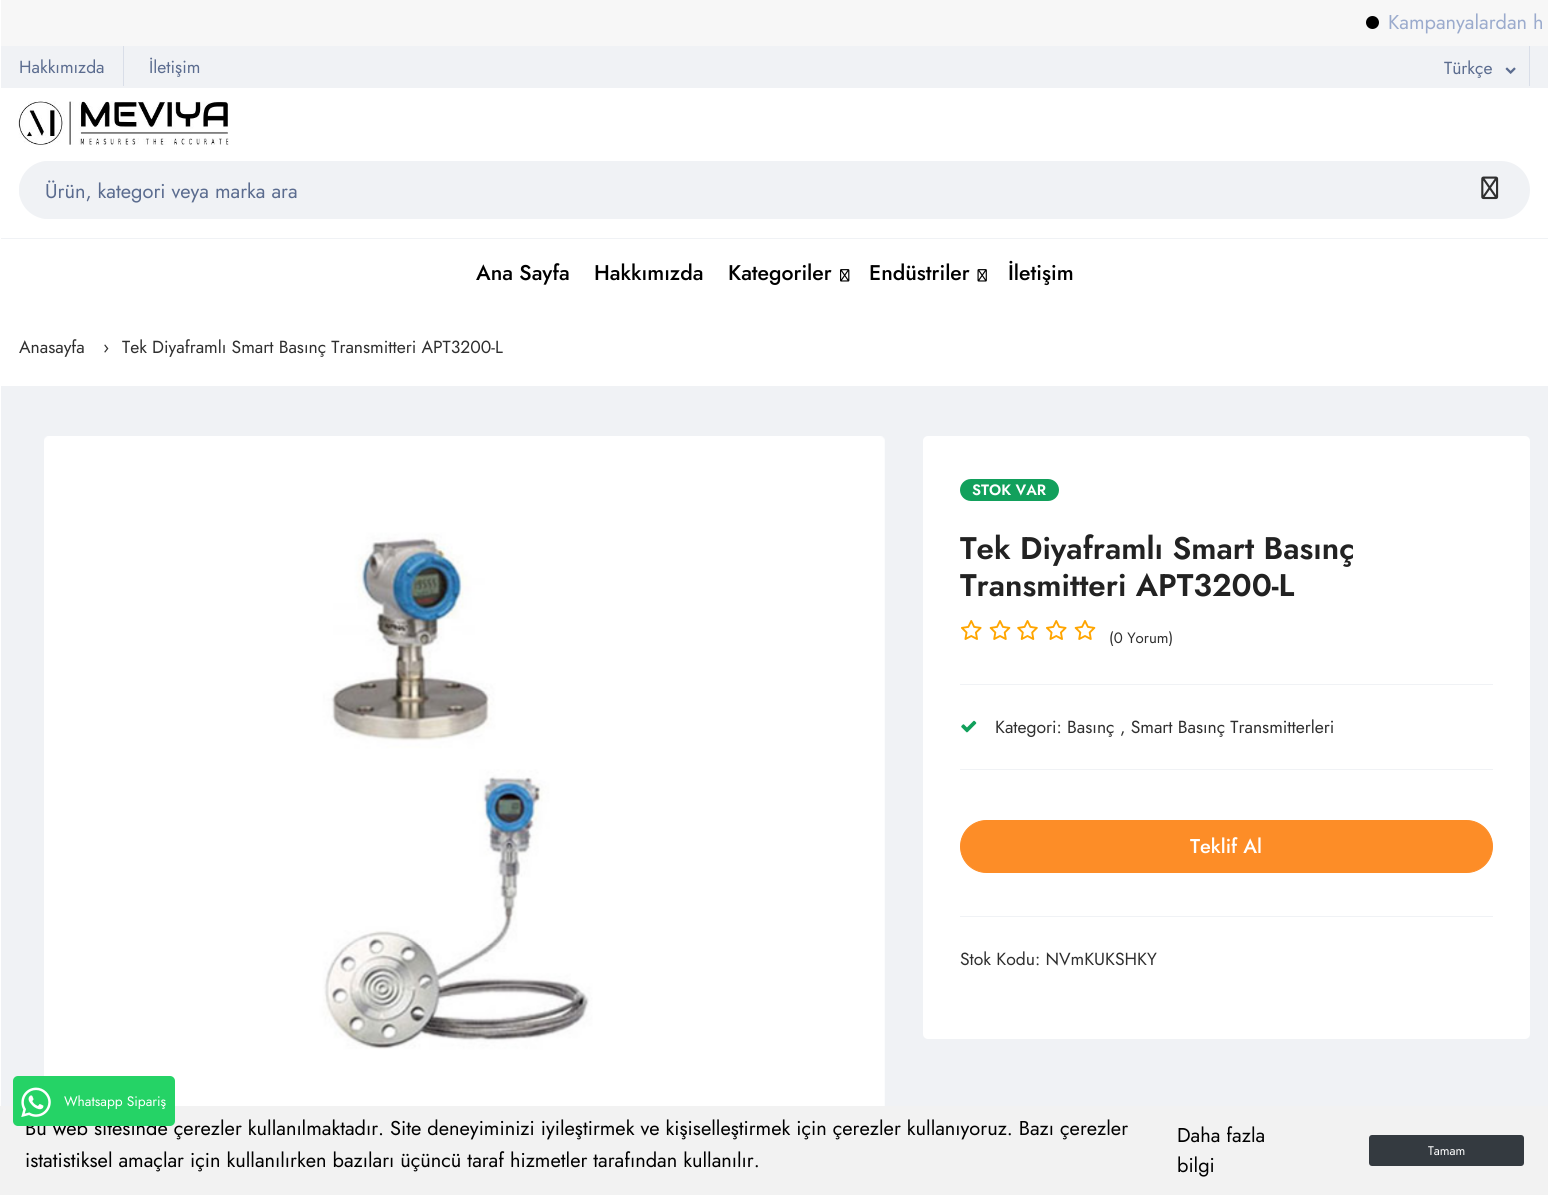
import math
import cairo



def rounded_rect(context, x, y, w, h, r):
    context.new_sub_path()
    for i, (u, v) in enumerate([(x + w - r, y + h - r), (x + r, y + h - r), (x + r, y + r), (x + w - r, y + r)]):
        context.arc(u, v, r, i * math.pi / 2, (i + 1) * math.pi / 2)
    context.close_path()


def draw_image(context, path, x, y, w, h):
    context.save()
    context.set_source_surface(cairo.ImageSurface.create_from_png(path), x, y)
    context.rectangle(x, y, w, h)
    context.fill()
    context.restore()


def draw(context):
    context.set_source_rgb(1, 1, 1)
    context.paint()
    context.set_source_rgb(247 / 255, 247 / 255, 247 / 255)
    context.rectangle(1, 0, 1547, 46)
    context.fill()
    context.set_source_rgb(0, 0, 0)
    context.arc(1372.5, 22.5, 6.5, 0, 2 * math.pi)
    context.fill()
    context.set_source_rgb(240 / 255, 242 / 255, 245 / 255)
    context.rectangle(1, 46, 1547, 42)
    context.fill()
    context.set_source_rgb(217 / 255, 222 / 255, 232 / 255)
    context.rectangle(123, 46, 1, 40)
    context.fill()
    context.rectangle(1529, 46, 1, 40)
    context.fill()
    draw_image(context, "images/1.png", 1505, 67, 11, 7)
    draw_image(context, "images/2.png", 18, 101, 211, 44)
    context.set_source_rgb(240 / 255, 242 / 255, 245 / 255)
    rounded_rect(context, 19, 161, 1511, 58, 29)
    context.fill()
    context.set_fill_rule(cairo.FillRule.EVEN_ODD)
    context.new_path()
    context.move_to(48, 161)
    context.line_to(40, 162)
    context.line_to(1455, 162)
    context.line_to(1455, 218)
    context.line_to(40, 218)
    context.line_to(48, 219)
    context.line_to(1456, 219)
    context.line_to(1456, 161)
    context.close_path()
    context.move_to(20, 198)
    context.curve_to(19, 193, 19, 187, 20, 182)
    context.close_path()
    context.fill()
    draw_image(context, "images/3.png", 1481, 176, 18, 24)
    context.rectangle(0, 238, 1548, 1)
    context.fill()
    draw_image(context, "images/4.png", 840, 269, 10, 13)
    draw_image(context, "images/5.png", 977, 269, 10, 13)
    context.set_source_rgb(1, 1, 1)
    context.rectangle(0, 238, 1, 1)
    context.fill()
    context.set_source_rgb(240 / 255, 242 / 255, 245 / 255)
    context.rectangle(1, 386, 1547, 720)
    context.fill()
    draw_image(context, "images/6.png", 44, 436, 841, 670)
    context.set_source_rgb(1, 1, 1)
    rounded_rect(context, 923, 436, 607, 603, 5)
    context.fill()
    context.set_source_rgb(18 / 255, 160 / 255, 92 / 255)
    rounded_rect(context, 960, 479, 99, 22, 11)
    context.fill()
    draw_image(context, "images/7.png", 961, 620, 21, 20)
    draw_image(context, "images/8.png", 989, 620, 22, 20)
    draw_image(context, "images/9.png", 1017, 620, 21, 20)
    draw_image(context, "images/7.png", 1046, 620, 21, 20)
    draw_image(context, "images/8.png", 1074, 620, 22, 20)
    context.set_source_rgb(240 / 255, 242 / 255, 245 / 255)
    context.rectangle(960, 684, 533, 1)
    context.fill()
    draw_image(context, "images/10.png", 961, 720, 16, 13)
    context.rectangle(960, 769, 533, 1)
    context.fill()
    context.set_source_rgb(253 / 255, 141 / 255, 39 / 255)
    rounded_rect(context, 960.5, 820.5, 532, 52, 26)
    context.fill_preserve()
    context.set_line_width(1)
    context.stroke()
    context.set_source_rgb(240 / 255, 242 / 255, 245 / 255)
    context.rectangle(960, 916, 533, 1)
    context.fill()
    context.set_source_rgb(242 / 255, 242 / 255, 242 / 255)
    context.rectangle(0, 1106, 1548, 89)
    context.fill()
    context.set_source_rgb(52 / 255, 58 / 255, 64 / 255)
    rounded_rect(context, 1369, 1135, 155, 31, 3)
    context.fill()
    context.select_font_face("Jost")
    context.set_font_size(20)
    context.set_source_rgb(155 / 255, 171 / 255, 205 / 255)
    context.move_to(1388, 29)
    context.show_text("Kampanyalardan h")
    context.set_font_size(17.5)
    context.set_source_rgb(91 / 255, 108 / 255, 143 / 255)
    context.move_to(19, 73)
    context.show_text("Hakkımızda")
    context.move_to(149, 73)
    context.show_text("İletişim")
    context.move_to(1444, 74)
    context.show_text("Türkçe")
    context.set_font_size(20)
    context.move_to(45, 198)
    context.show_text("Ürün, kategori veya marka ara")
    context.select_font_face("Jost Medium")
    context.set_font_size(21.25)
    context.set_source_rgb(0, 0, 0)
    context.move_to(476, 280)
    context.show_text("Ana Sayfa")
    context.move_to(594, 280)
    context.show_text("Hakkımızda")
    context.move_to(728, 280)
    context.show_text("Kategoriler")
    context.move_to(869, 280)
    context.show_text("Endüstriler")
    context.move_to(1008, 280)
    context.show_text("İletişim")
    context.select_font_face("Jost")
    context.set_font_size(17.5)
    context.set_source_rgb(47 / 255, 47 / 255, 47 / 255)
    context.move_to(19, 353)
    context.show_text("Anasayfa")
    context.move_to(103, 353)
    context.show_text("›")
    context.move_to(122, 353)
    context.show_text("Tek Diyaframlı Smart Basınç Transmitteri APT3200-L")
    context.select_font_face("Jost SemiBold")
    context.set_font_size(15)
    context.set_source_rgb(1, 1, 1)
    context.move_to(972, 495)
    context.show_text("STOK VAR")
    context.set_font_size(31.25)
    context.set_source_rgb(34 / 255, 34 / 255, 34 / 255)
    context.move_to(960, 559)
    context.show_text("Tek Diyaframlı Smart Basınç")
    context.move_to(960, 596)
    context.show_text("Transmitteri APT3200-L")
    context.select_font_face("Jost")
    context.set_font_size(15)
    context.set_source_rgb(47 / 255, 47 / 255, 47 / 255)
    context.move_to(1109, 643)
    context.show_text("(0 Yorum)")
    context.set_font_size(17.5)
    context.move_to(995, 733)
    context.show_text("Kategori: Basınç")
    context.move_to(1120, 733)
    context.show_text(", Smart Basınç Transmitterleri")
    context.select_font_face("Jost Medium")
    context.set_font_size(20)
    context.set_source_rgb(1, 1, 1)
    context.move_to(1190, 853)
    context.show_text("Teklif Al")
    context.select_font_face("Jost")
    context.set_font_size(17.5)
    context.set_source_rgb(47 / 255, 47 / 255, 47 / 255)
    context.move_to(960, 965)
    context.show_text("Stok Kodu: NVmKUKSHKY")
    context.set_font_size(20)
    context.set_source_rgb(0, 0, 0)
    context.move_to(25, 1135)
    context.show_text("Bu web sitesinde çerezler kullanılmaktadır. Site deneyiminizi iyileştirmek ve kişiselleştirmek için çerezler kullanıyoruz. Bazı çerezler")
    context.set_source_rgb(37 / 255, 211 / 255, 102 / 255)
    rounded_rect(context, 13, 1076, 162, 50, 5)
    context.fill()
    context.set_font_size(13.75)
    context.set_source_rgb(1, 1, 1)
    context.move_to(64, 1106)
    context.show_text("Whatsapp Sipariş")
    draw_image(context, "images/11.png", 21, 1087, 30, 30)
    context.set_font_size(20)
    context.set_source_rgb(0, 0, 0)
    context.move_to(25, 1167)
    context.show_text("istatistiksel amaçlar için kullanılırken bazıları üçüncü taraf hizmetler tarafından kullanılır.")
    context.move_to(1177, 1142)
    context.show_text("Daha fazla")
    context.move_to(1177, 1172)
    context.show_text("bilgi")
    context.set_font_size(12.5)
    context.set_source_rgb(1, 1, 1)
    context.move_to(1428, 1155)
    context.show_text("Tamam")


surface = cairo.ImageSurface(cairo.Format.RGB24, 1548, 1195)
context = cairo.Context(surface)
options = cairo.FontOptions()
options.set_hint_metrics(cairo.HintMetrics.OFF)
options.set_hint_style(cairo.HintStyle.NONE)
context.set_font_options(options)
context.set_miter_limit(4)
draw(context)
surface.write_to_png("out.png")
